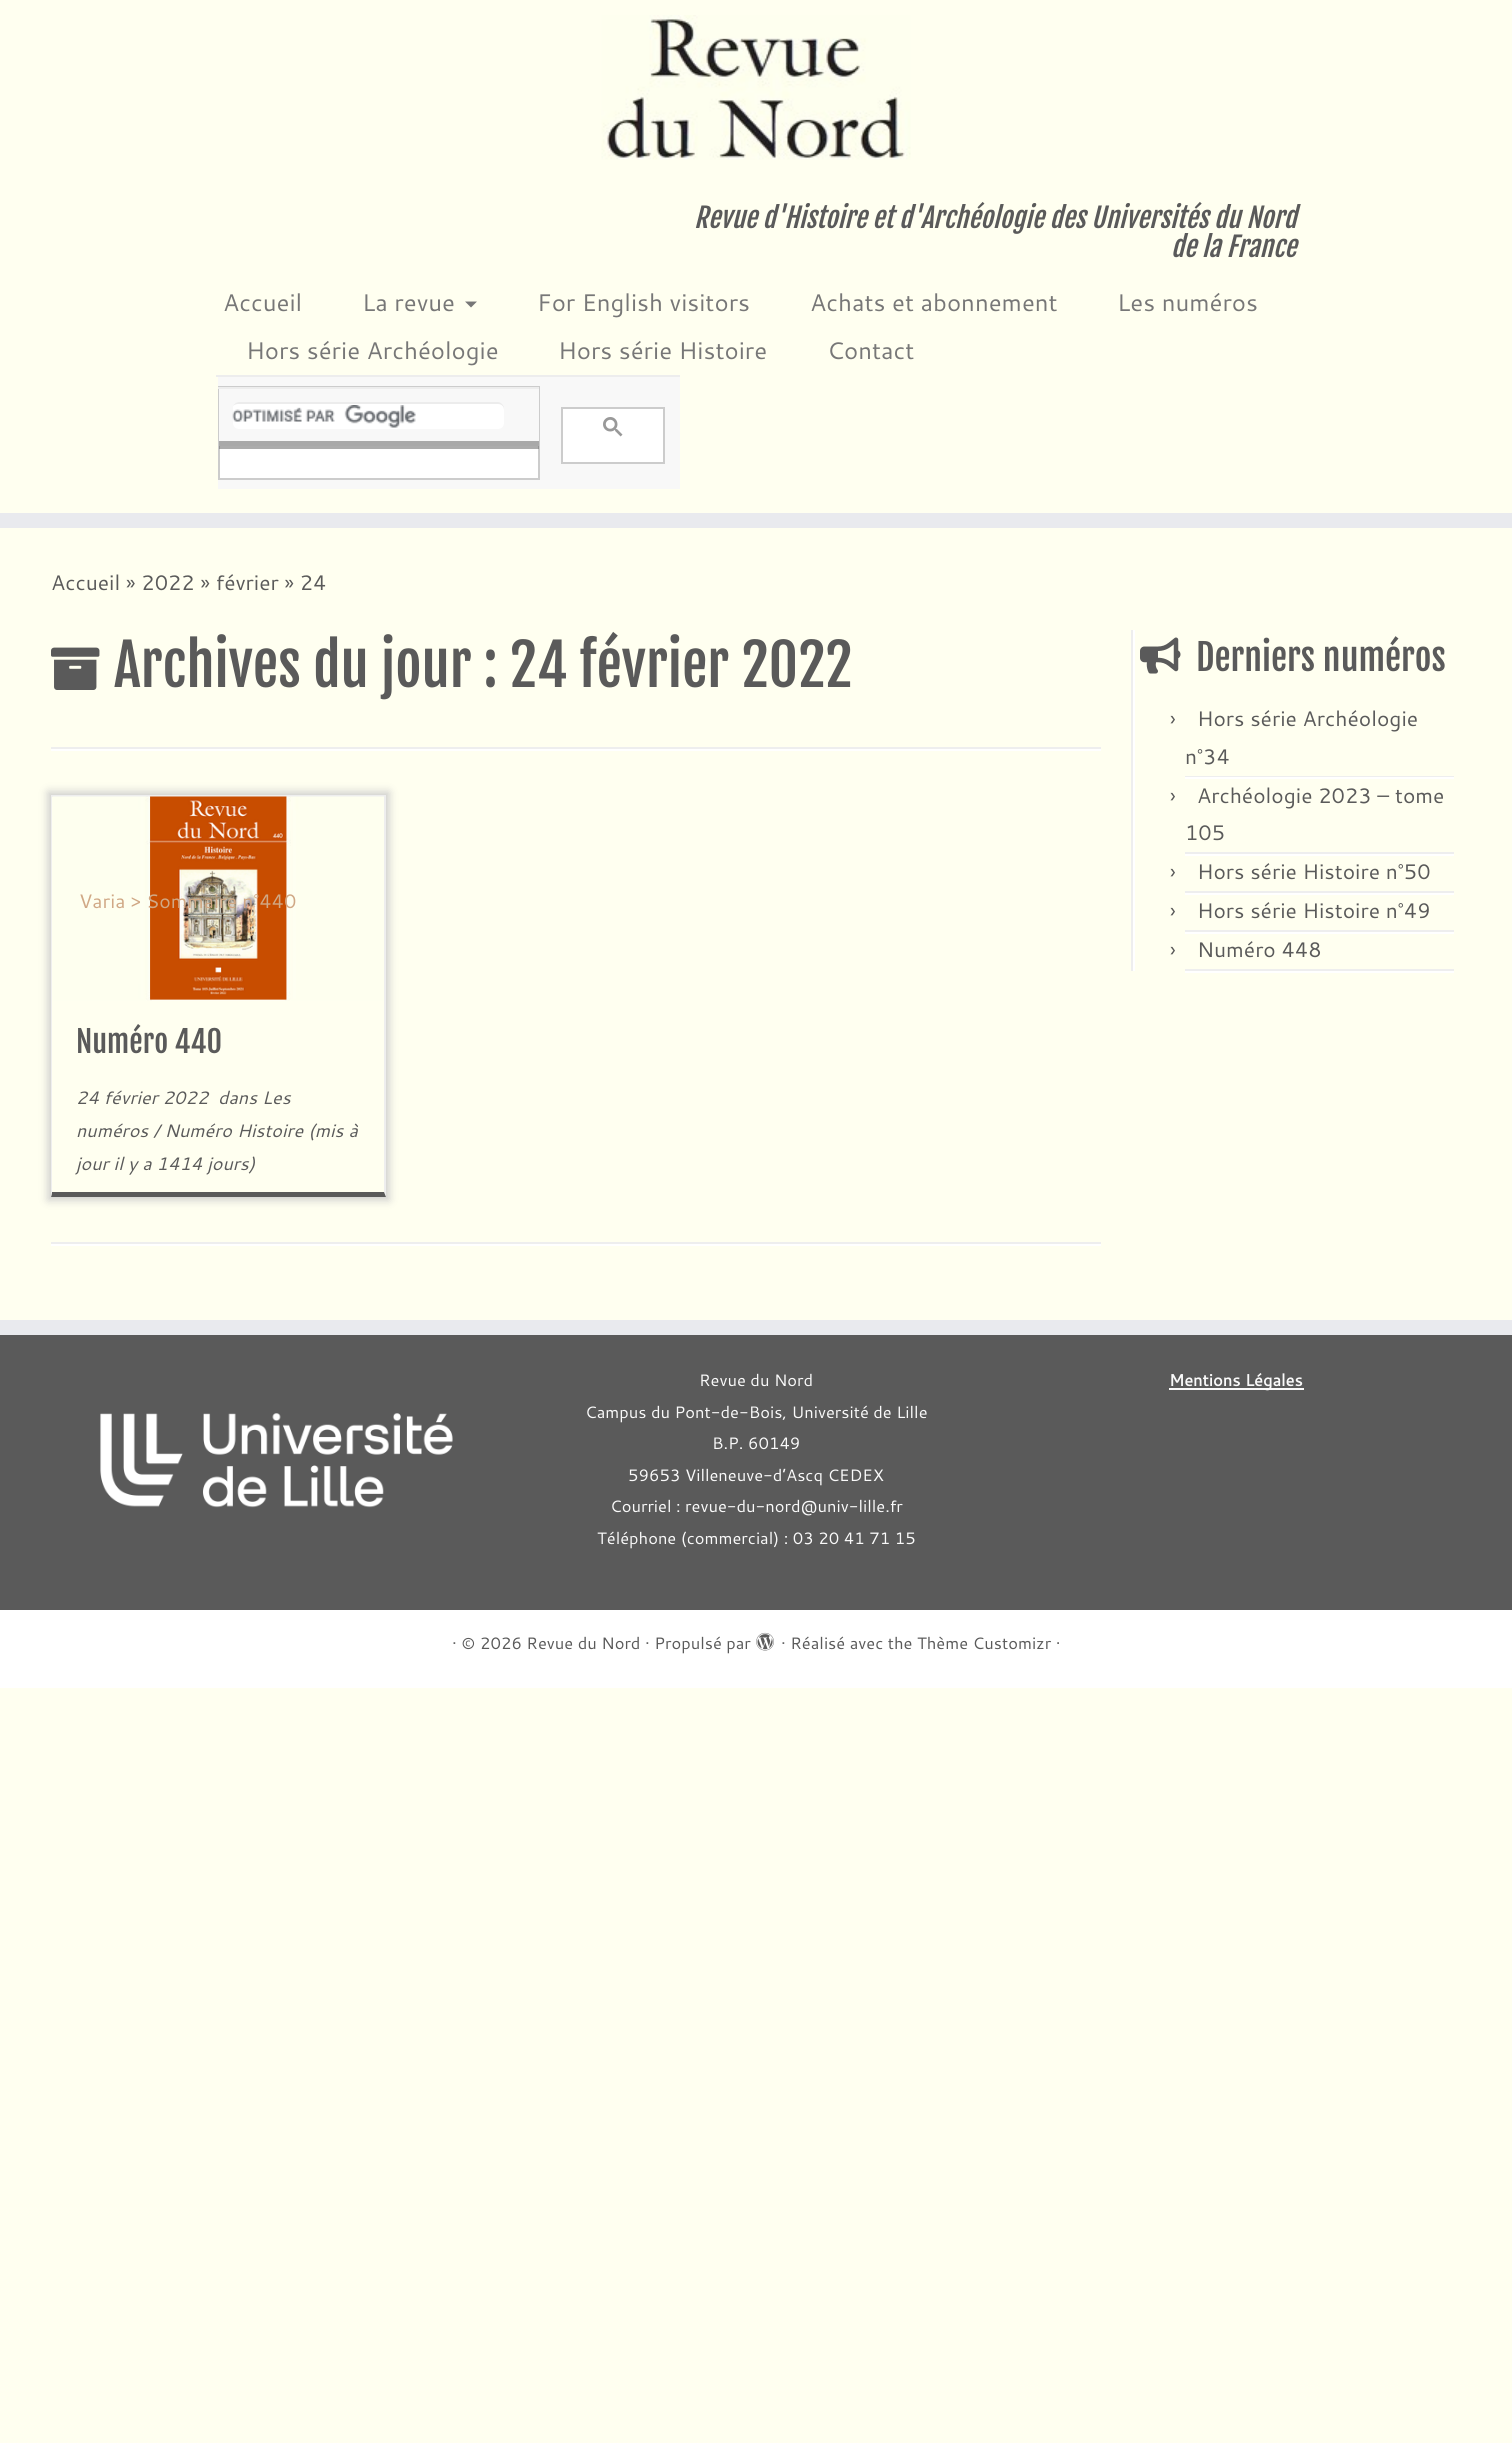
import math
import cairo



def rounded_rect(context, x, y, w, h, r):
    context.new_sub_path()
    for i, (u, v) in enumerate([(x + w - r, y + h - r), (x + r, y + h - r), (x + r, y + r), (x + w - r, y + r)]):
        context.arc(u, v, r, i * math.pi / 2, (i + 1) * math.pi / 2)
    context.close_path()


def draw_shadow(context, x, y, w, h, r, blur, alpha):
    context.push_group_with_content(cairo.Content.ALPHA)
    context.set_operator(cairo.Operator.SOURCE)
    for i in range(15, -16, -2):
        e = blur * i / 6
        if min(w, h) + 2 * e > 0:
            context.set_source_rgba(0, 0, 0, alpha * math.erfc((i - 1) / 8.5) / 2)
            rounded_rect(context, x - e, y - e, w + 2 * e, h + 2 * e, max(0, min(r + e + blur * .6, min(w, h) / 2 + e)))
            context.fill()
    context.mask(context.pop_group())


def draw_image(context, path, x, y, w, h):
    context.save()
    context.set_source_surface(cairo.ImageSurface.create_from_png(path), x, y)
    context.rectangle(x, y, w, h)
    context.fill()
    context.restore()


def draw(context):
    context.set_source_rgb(1, 1, 240 / 255)
    context.paint()
    context.set_source_rgb(233 / 255, 234 / 255, 238 / 255)
    context.rectangle(0, 513, 1512, 15)
    context.fill()
    draw_image(context, "images/1.png", 601, 15, 310, 145)
    context.set_source_rgb(119 / 255, 119 / 255, 119 / 255)
    context.new_path()
    context.move_to(465, 301.5)
    context.line_to(477, 301.5)
    context.line_to(471, 307.5)
    context.close_path()
    context.fill()
    context.set_source_rgb(237 / 255, 237 / 255, 237 / 255)
    context.rectangle(216, 375, 464, 2)
    context.fill()
    context.set_source_rgb(248 / 255, 248 / 255, 248 / 255)
    context.rectangle(218, 377, 462, 112)
    context.fill()
    context.set_source_rgb(1, 1, 1)
    context.rectangle(562, 408, 102, 55)
    context.fill_preserve()
    context.set_source_rgb(204 / 255, 204 / 255, 204 / 255)
    context.stroke()
    draw_image(context, "images/2.png", 603, 417, 20, 20)
    context.set_source_rgb(1, 1, 1)
    context.rectangle(220, 446, 318, 32)
    context.fill()
    context.rectangle(219, 387, 320, 92)
    context.set_source_rgb(204 / 255, 204 / 255, 204 / 255)
    context.stroke()
    context.set_source_rgb(248 / 255, 248 / 255, 248 / 255)
    context.rectangle(538, 389, 1, 57)
    context.fill()
    context.rectangle(219, 389, 1, 57)
    context.fill()
    context.set_source_rgba(90 / 255, 90 / 255, 90 / 255, 0.5)
    context.rectangle(219, 441, 320, 8)
    context.fill()
    context.set_source_rgb(237 / 255, 237 / 255, 237 / 255)
    context.rectangle(218, 387, 321, 2)
    context.fill()
    context.set_source_rgb(1, 1, 1)
    rounded_rect(context, 233, 402, 271, 27, 6)
    context.fill()
    draw_image(context, "images/3.png", 232, 405, 184, 23)
    context.set_source_rgb(236 / 255, 236 / 255, 236 / 255)
    context.new_path()
    context.move_to(238, 404)
    context.line_to(498, 404)
    context.curve_to(501, 404, 504, 406, 504, 410)
    context.line_to(504, 408)
    context.curve_to(504, 405, 501, 402, 498, 402)
    context.line_to(239, 402)
    context.curve_to(236, 402, 234, 404, 233, 406)
    context.curve_to(234, 405, 236, 404, 238, 404)
    context.close_path()
    context.fill()
    draw_image(context, "images/4.png", 51, 647, 49, 43)
    context.set_source_rgb(238 / 255, 238 / 255, 238 / 255)
    context.rectangle(51, 747, 1050, 2)
    context.fill()
    context.set_source_rgb(1, 1, 1)
    context.rectangle(51, 749, 1050, 2)
    context.fill()
    context.save()
    context.set_fill_rule(cairo.FillRule.EVEN_ODD)
    context.new_path()
    context.move_to(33, 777)
    context.line_to(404, 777)
    context.line_to(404, 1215)
    context.line_to(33, 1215)
    context.close_path()
    context.move_to(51, 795)
    context.line_to(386, 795)
    context.line_to(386, 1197)
    context.line_to(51, 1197)
    context.close_path()
    context.clip()
    context.set_source_rgb(204 / 255, 204 / 255, 204 / 255)
    draw_shadow(context, 48, 792, 341, 408, 0, 4.5, 1)
    context.restore()
    context.set_source_rgb(238 / 255, 238 / 255, 238 / 255)
    context.rectangle(51, 795, 335, 2)
    context.fill()
    context.new_path()
    context.move_to(386, 795)
    context.line_to(386, 1197)
    context.line_to(384, 1192)
    context.line_to(384, 796)
    context.close_path()
    context.fill()
    context.set_source_rgb(90 / 255, 90 / 255, 90 / 255)
    context.new_path()
    context.move_to(386, 1197)
    context.line_to(51, 1197)
    context.line_to(52, 1192)
    context.line_to(384, 1192)
    context.close_path()
    context.fill()
    context.set_source_rgb(238 / 255, 238 / 255, 238 / 255)
    context.new_path()
    context.move_to(51, 1197)
    context.line_to(51, 795)
    context.line_to(52, 796)
    context.line_to(52, 1192)
    context.close_path()
    context.fill()
    draw_image(context, "images/5.png", 52, 796, 332, 205)
    context.rectangle(51, 1242, 1050, 2)
    context.fill()
    context.set_source_rgb(1, 1, 1)
    context.rectangle(51, 1244, 1050, 2)
    context.fill()
    context.set_source_rgb(238 / 255, 238 / 255, 238 / 255)
    context.rectangle(1131, 630, 2, 341)
    context.fill()
    context.set_source_rgb(1, 1, 1)
    context.rectangle(1133, 630, 2, 341)
    context.fill()
    draw_image(context, "images/6.png", 1140, 637, 41, 37)
    context.set_source_rgb(238 / 255, 238 / 255, 238 / 255)
    context.rectangle(1185, 776, 269, 1)
    context.fill()
    context.set_source_rgb(1, 1, 1)
    context.rectangle(1185, 777, 269, 2)
    context.fill()
    context.set_source_rgb(238 / 255, 238 / 255, 238 / 255)
    context.rectangle(1185, 852, 269, 2)
    context.fill()
    context.set_source_rgb(1, 1, 1)
    context.rectangle(1185, 854, 269, 2)
    context.fill()
    context.set_source_rgb(238 / 255, 238 / 255, 238 / 255)
    context.rectangle(1185, 891, 269, 2)
    context.fill()
    context.set_source_rgb(1, 1, 1)
    context.rectangle(1185, 893, 269, 2)
    context.fill()
    context.set_source_rgb(238 / 255, 238 / 255, 238 / 255)
    context.rectangle(1185, 930, 269, 2)
    context.fill()
    context.set_source_rgb(1, 1, 1)
    context.rectangle(1185, 932, 269, 2)
    context.fill()
    context.set_source_rgb(238 / 255, 238 / 255, 238 / 255)
    context.rectangle(1185, 969, 269, 2)
    context.fill()
    context.set_source_rgb(1, 1, 1)
    context.rectangle(1185, 971, 269, 2)
    context.fill()
    context.set_source_rgb(90 / 255, 90 / 255, 90 / 255)
    context.rectangle(0, 1335, 1512, 275)
    context.fill()
    context.set_source_rgb(233 / 255, 234 / 255, 238 / 255)
    context.rectangle(0, 1320, 1512, 15)
    context.fill()
    context.set_source_rgb(250 / 255, 250 / 255, 250 / 255)
    context.rectangle(1169, 1388, 135, 2)
    context.fill()
    draw_image(context, "images/7.png", 100, 1413, 353, 95)
    context.set_source_rgb(1, 1, 1)
    context.rectangle(0, 1610, 1512, 78)
    context.fill()
    draw_image(context, "images/8.png", 756, 1632, 18, 19)
    context.select_font_face("Fjalla One", cairo.FontSlant.ITALIC)
    context.set_font_size(27)
    context.set_source_rgb(90 / 255, 90 / 255, 90 / 255)
    context.move_to(694, 228)
    context.show_text("Revue d'Histoire et d'Archéologie des Universités du Nord")
    context.move_to(1171, 257)
    context.show_text("de la France")
    context.select_font_face("Cantarell")
    context.set_font_size(24)
    context.set_source_rgb(119 / 255, 119 / 255, 119 / 255)
    context.move_to(223, 311)
    context.show_text("Accueil")
    context.move_to(362, 311)
    context.show_text("La revue")
    context.move_to(537, 311)
    context.show_text("For English visitors")
    context.move_to(810, 311)
    context.show_text("Achats et abonnement")
    context.move_to(1117, 311)
    context.show_text("Les numéros")
    context.move_to(246, 359)
    context.show_text("Hors série Archéologie")
    context.move_to(558, 359)
    context.show_text("Hors série Histoire")
    context.move_to(827, 359)
    context.show_text("Contact")
    context.set_font_size(21)
    context.set_source_rgb(90 / 255, 90 / 255, 90 / 255)
    context.move_to(51, 590)
    context.show_text("Accueil » 2022 » février » 24")
    context.select_font_face("Fjalla One")
    context.set_font_size(57)
    context.move_to(114, 687)
    context.show_text("Archives du jour : 24 février 2022")
    context.select_font_face("Cantarell")
    context.set_font_size(19.5)
    context.set_source_rgb(208 / 255, 168 / 255, 133 / 255)
    context.move_to(79, 908)
    context.show_text("Varia > Sommaire n°440")
    context.select_font_face("Fjalla One")
    context.set_font_size(30)
    context.set_source_rgb(90 / 255, 90 / 255, 90 / 255)
    context.move_to(76, 1053)
    context.show_text("Numéro 440")
    context.select_font_face("Cantarell", cairo.FontSlant.ITALIC)
    context.set_font_size(18)
    context.move_to(76, 1104)
    context.show_text("24 février 2022")
    context.move_to(218, 1104)
    context.show_text("dans Les")
    context.move_to(76, 1137)
    context.show_text("numéros / Numéro Histoire (mis à")
    context.move_to(76, 1170)
    context.show_text("jour il y a 1414 jours)")
    context.select_font_face("Fjalla One")
    context.set_font_size(36)
    context.move_to(1196, 671)
    context.show_text("Derniers numéros")
    context.select_font_face("Cantarell")
    context.set_font_size(21)
    context.move_to(1170, 726)
    context.show_text("›")
    context.move_to(1197, 726)
    context.show_text("Hors série Archéologie")
    context.move_to(1185, 764)
    context.show_text("n°34")
    context.move_to(1170, 803)
    context.show_text("›")
    context.move_to(1197, 803)
    context.show_text("Archéologie 2023 – tome")
    context.move_to(1185, 840)
    context.show_text("105")
    context.move_to(1170, 879)
    context.show_text("›")
    context.move_to(1197, 879)
    context.show_text("Hors série Histoire n°50")
    context.move_to(1170, 918)
    context.show_text("›")
    context.move_to(1197, 918)
    context.show_text("Hors série Histoire n°49")
    context.move_to(1170, 957)
    context.show_text("›")
    context.move_to(1197, 957)
    context.show_text("Numéro 448")
    context.set_font_size(16.5)
    context.set_source_rgb(250 / 255, 250 / 255, 250 / 255)
    context.move_to(699, 1386)
    context.show_text("Revue du Nord")
    context.move_to(585, 1418)
    context.show_text("Campus du Pont-de-Bois, Université de Lille")
    context.move_to(712, 1449)
    context.show_text("B.P. 60149")
    context.move_to(628, 1481)
    context.show_text("59653 Villeneuve-d’Ascq CEDEX")
    context.move_to(610, 1512)
    context.show_text("Courriel : revue-du-nord@univ-lille.fr")
    context.move_to(597, 1544)
    context.show_text("Téléphone (commercial) : 03 20 41 71 15")
    context.select_font_face("Cantarell", cairo.FontSlant.NORMAL, cairo.FontWeight.BOLD)
    context.move_to(1169, 1386)
    context.show_text("Mentions Légales")
    context.select_font_face("Cantarell")
    context.set_source_rgb(90 / 255, 90 / 255, 90 / 255)
    context.move_to(452, 1649)
    context.show_text("· © 2026 Revue du Nord · Propulsé par")
    context.move_to(781, 1649)
    context.show_text("· Réalisé avec the Thème Customizr ·")


surface = cairo.ImageSurface(cairo.Format.RGB24, 1512, 2443)
context = cairo.Context(surface)
options = cairo.FontOptions()
options.set_hint_metrics(cairo.HintMetrics.OFF)
options.set_hint_style(cairo.HintStyle.NONE)
context.set_font_options(options)
context.set_miter_limit(4)
draw(context)
surface.write_to_png("out.png")
